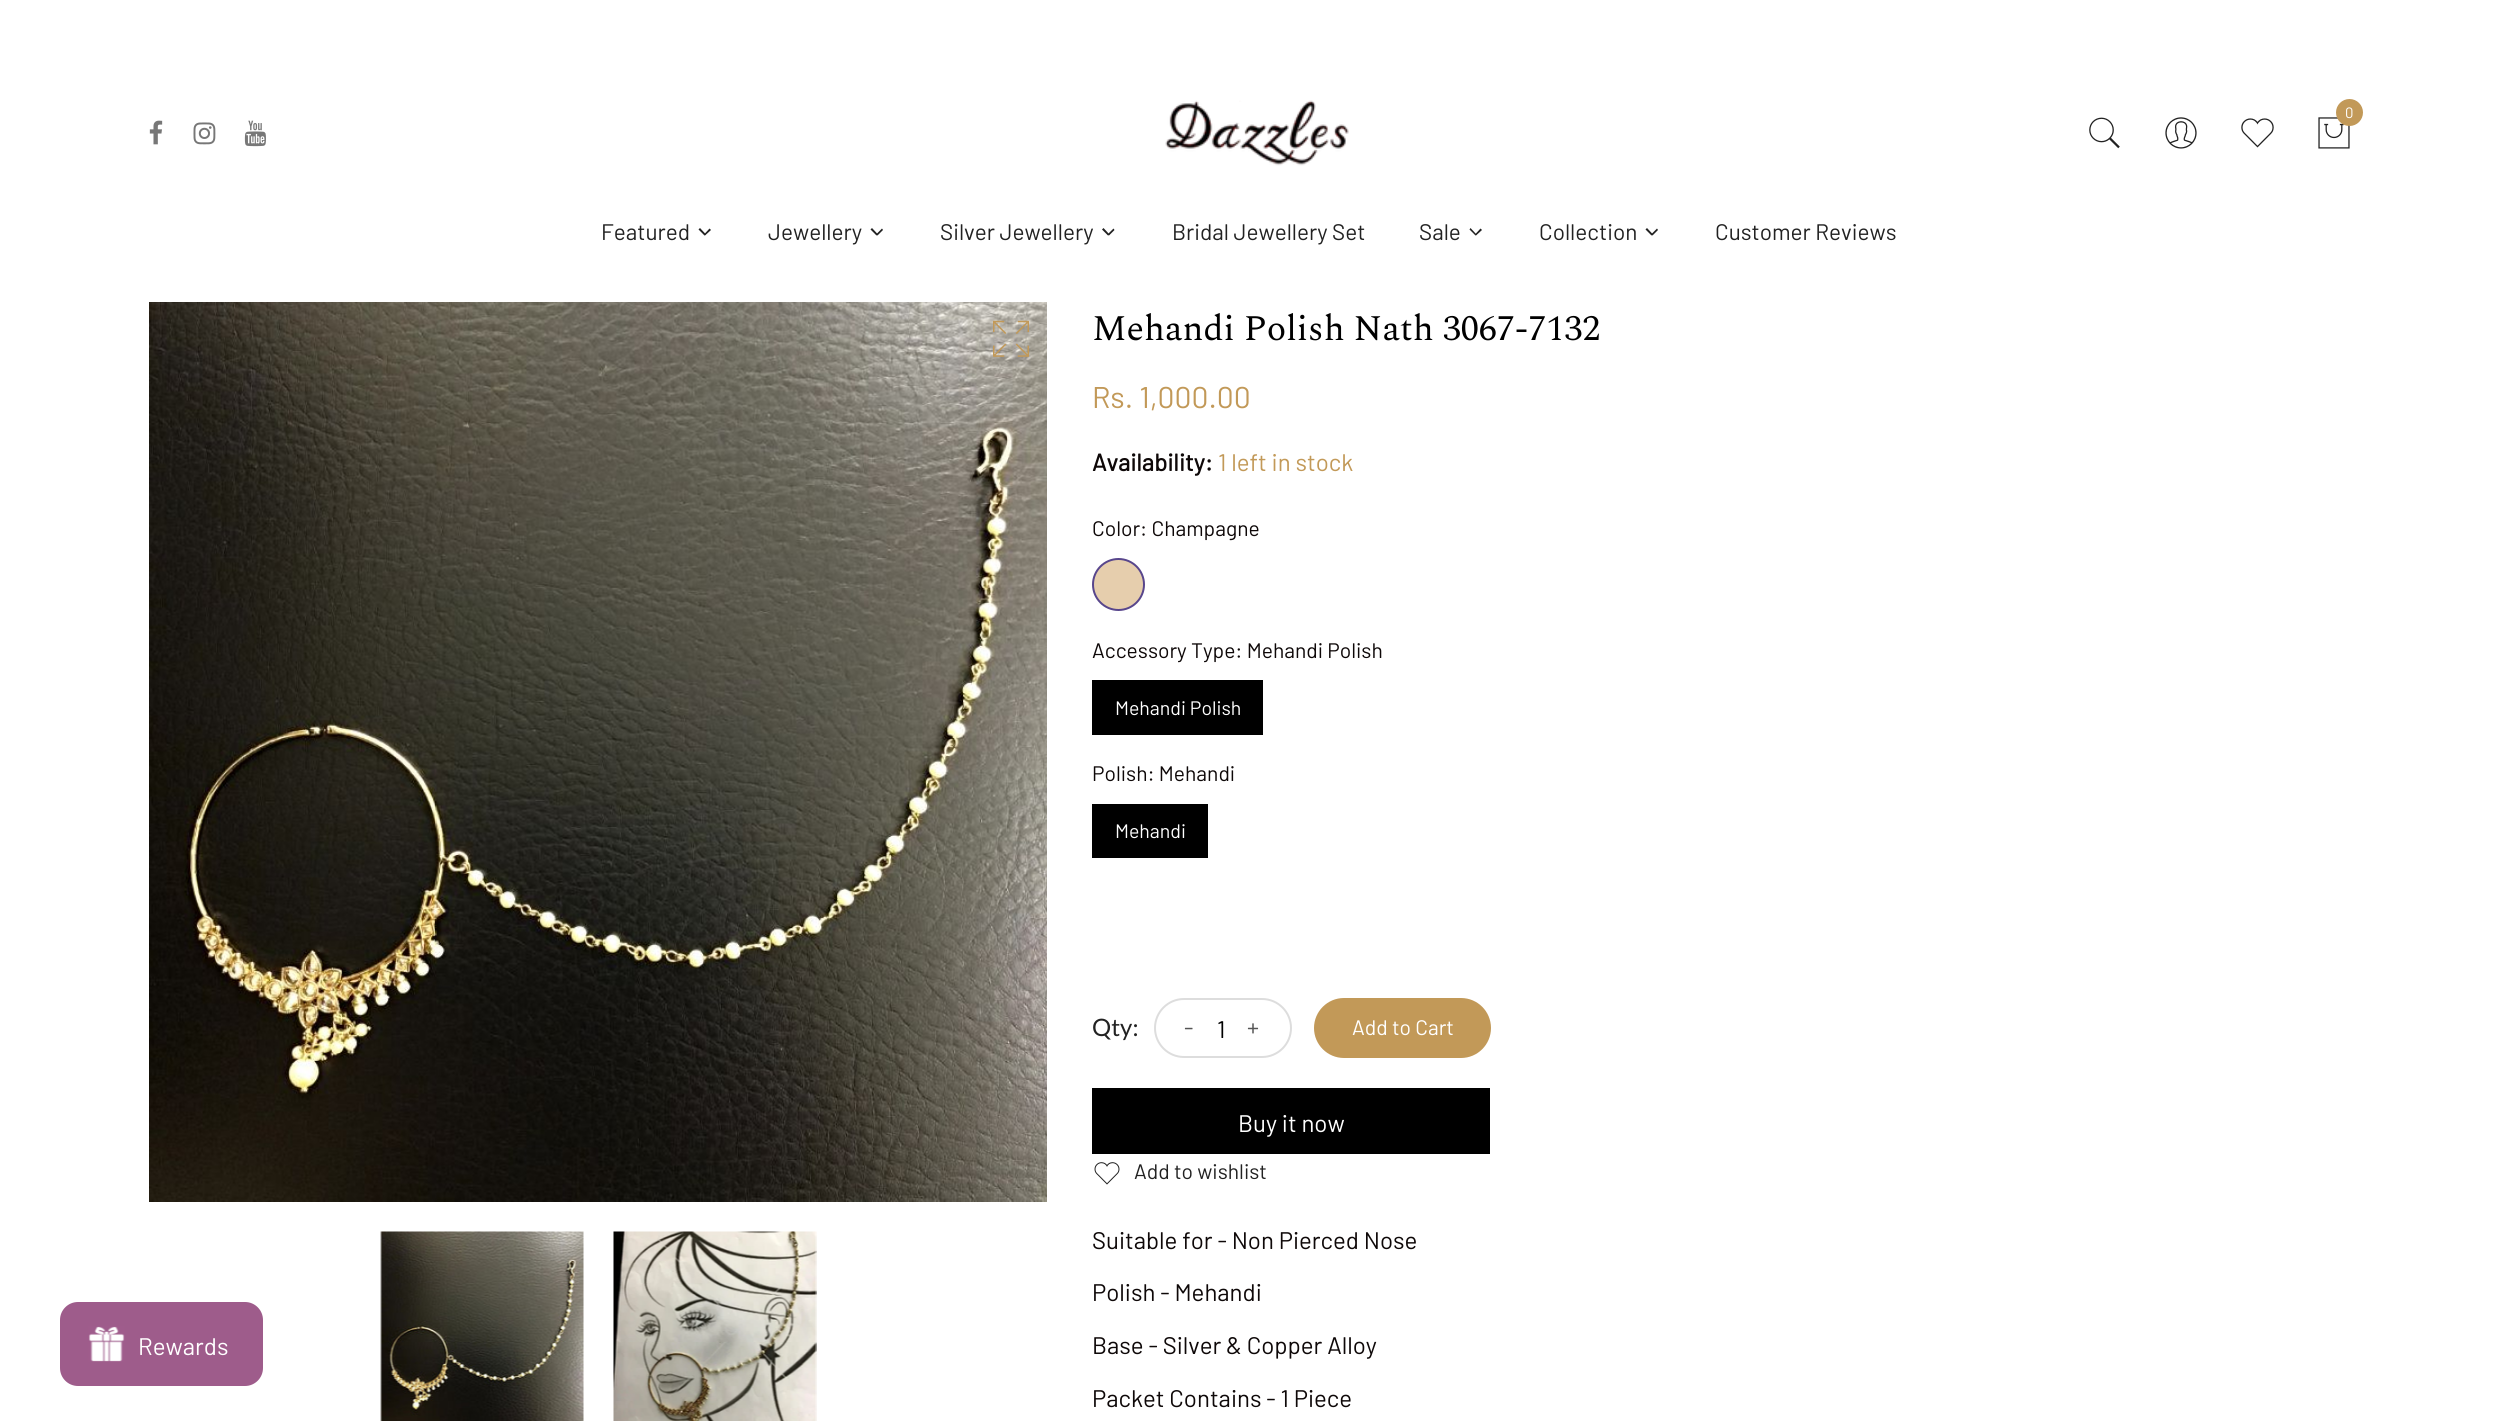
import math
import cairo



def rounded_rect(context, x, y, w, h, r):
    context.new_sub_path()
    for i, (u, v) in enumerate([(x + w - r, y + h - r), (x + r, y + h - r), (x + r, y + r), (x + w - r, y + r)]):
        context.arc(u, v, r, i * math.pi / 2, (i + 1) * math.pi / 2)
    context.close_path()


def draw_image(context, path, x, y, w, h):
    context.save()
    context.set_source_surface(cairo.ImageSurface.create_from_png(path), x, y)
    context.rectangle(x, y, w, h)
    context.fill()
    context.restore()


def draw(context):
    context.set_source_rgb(1, 1, 1)
    context.paint()
    context.set_source_rgb(158 / 255, 92 / 255, 139 / 255)
    rounded_rect(context, 60, 1302, 203, 84, 18)
    context.fill()
    draw_image(context, "images/1.png", 88, 1326, 37, 36)
    draw_image(context, "images/2.png", 1165, 100, 184, 66)
    draw_image(context, "images/3.png", 2318, 117, 32, 32)
    context.set_source_rgb(194 / 255, 153 / 255, 88 / 255)
    context.arc(2349.5, 112.5, 13.5, 0, 2 * math.pi)
    context.fill()
    draw_image(context, "images/4.png", 2089, 117, 31, 32)
    draw_image(context, "images/5.png", 2165, 117, 32, 32)
    draw_image(context, "images/6.png", 2241, 118, 33, 30)
    draw_image(context, "images/7.png", 149, 120, 14, 25)
    draw_image(context, "images/8.png", 193, 122, 23, 23)
    draw_image(context, "images/9.png", 244, 120, 22, 27)
    context.set_source_rgb(34 / 255, 34 / 255, 34 / 255)
    context.new_path()
    context.move_to(709.5, 228.5)
    context.line_to(711, 230)
    context.line_to(705, 235.5)
    context.line_to(704, 234.5)
    context.close_path()
    context.fill()
    context.new_path()
    context.move_to(700, 228)
    context.line_to(706, 234.5)
    context.line_to(704.5, 235.5)
    context.line_to(698.5, 229.5)
    context.close_path()
    context.fill()
    context.new_path()
    context.move_to(882, 228.5)
    context.line_to(883, 230)
    context.line_to(877.5, 235.5)
    context.line_to(876, 234.5)
    context.close_path()
    context.fill()
    context.new_path()
    context.move_to(872, 228)
    context.line_to(878, 234.5)
    context.line_to(876.5, 235.5)
    context.line_to(870.5, 229.5)
    context.close_path()
    context.fill()
    context.new_path()
    context.move_to(1113.5, 228.5)
    context.line_to(1114.5, 230)
    context.line_to(1109, 235.5)
    context.line_to(1107.5, 234.5)
    context.close_path()
    context.fill()
    context.new_path()
    context.move_to(1103.5, 228)
    context.line_to(1109.5, 234.5)
    context.line_to(1108, 235.5)
    context.line_to(1102, 229.5)
    context.close_path()
    context.fill()
    context.new_path()
    context.move_to(1480.5, 228.5)
    context.line_to(1482, 230)
    context.line_to(1476, 235.5)
    context.line_to(1475, 234.5)
    context.close_path()
    context.fill()
    context.new_path()
    context.move_to(1470.5, 228)
    context.line_to(1476.5, 234.5)
    context.line_to(1475.5, 235.5)
    context.line_to(1469.5, 229.5)
    context.close_path()
    context.fill()
    context.new_path()
    context.move_to(1657, 228.5)
    context.line_to(1658, 230)
    context.line_to(1652.5, 235.5)
    context.line_to(1651, 234.5)
    context.close_path()
    context.fill()
    context.new_path()
    context.move_to(1647, 228)
    context.line_to(1653, 234.5)
    context.line_to(1651.5, 235.5)
    context.line_to(1645.5, 229.5)
    context.close_path()
    context.fill()
    draw_image(context, "images/10.png", 149, 302, 898, 900)
    draw_image(context, "images/11.png", 993, 320, 36, 37)
    draw_image(context, "images/12.png", 380, 1231, 204, 190)
    draw_image(context, "images/13.png", 613, 1231, 204, 190)
    context.set_source_rgb(230 / 255, 206 / 255, 173 / 255)
    context.arc(1118.5, 584.5, 25.5, 0, 2 * math.pi)
    context.fill_preserve()
    context.set_source_rgb(88 / 255, 70 / 255, 140 / 255)
    context.stroke()
    context.set_source_rgb(0, 0, 0)
    context.rectangle(1092, 680, 171, 55)
    context.fill()
    context.rectangle(1092, 804, 116, 54)
    context.fill()
    rounded_rect(context, 1155, 999, 136, 58, 29)
    context.set_source_rgb(221 / 255, 221 / 255, 221 / 255)
    context.stroke()
    context.set_source_rgb(194 / 255, 153 / 255, 88 / 255)
    rounded_rect(context, 1314, 998, 177, 60, 30)
    context.fill()
    context.set_source_rgb(0, 0, 0)
    context.rectangle(1092, 1088, 398, 66)
    context.fill()
    draw_image(context, "images/14.png", 1094, 1162, 26, 23)
    context.select_font_face("Barlow")
    context.set_font_size(24)
    context.set_source_rgb(1, 1, 1)
    context.move_to(138, 1355)
    context.show_text("Rewards")
    context.set_font_size(15)
    context.move_to(2345, 118)
    context.show_text("0")
    context.set_font_size(22.5)
    context.set_source_rgb(34 / 255, 34 / 255, 34 / 255)
    context.move_to(601, 240)
    context.show_text("Featured")
    context.move_to(768, 240)
    context.show_text("Jewellery")
    context.move_to(940, 240)
    context.show_text("Silver Jewellery")
    context.move_to(1172, 240)
    context.show_text("Bridal Jewellery Set")
    context.move_to(1419, 240)
    context.show_text("Sale")
    context.move_to(1539, 240)
    context.show_text("Collection")
    context.move_to(1715, 240)
    context.show_text("Customer Reviews")
    context.select_font_face("Spectral")
    context.set_font_size(36)
    context.set_source_rgb(0, 0, 0)
    context.move_to(1092, 340)
    context.show_text("Mehandi Polish Nath 3067-7132")
    context.select_font_face("Barlow")
    context.set_font_size(30)
    context.set_source_rgb(194 / 255, 153 / 255, 88 / 255)
    context.move_to(1092, 408)
    context.show_text("Rs. 1,000.00")
    context.select_font_face("Barlow", cairo.FontSlant.NORMAL, cairo.FontWeight.BOLD)
    context.set_font_size(24)
    context.set_source_rgb(14 / 255, 8 / 255, 8 / 255)
    context.move_to(1092, 471)
    context.show_text("Availability:")
    context.select_font_face("Barlow")
    context.set_source_rgb(194 / 255, 153 / 255, 88 / 255)
    context.move_to(1218, 471)
    context.show_text("1 left in stock")
    context.set_font_size(21)
    context.set_source_rgb(14 / 255, 8 / 255, 8 / 255)
    context.move_to(1092, 536)
    context.show_text("Color: Champagne")
    context.move_to(1092, 658)
    context.show_text("Accessory Type: Mehandi Polish")
    context.set_font_size(19.5)
    context.set_source_rgb(1, 1, 1)
    context.move_to(1115, 715)
    context.show_text("Mehandi Polish")
    context.set_font_size(21)
    context.set_source_rgb(14 / 255, 8 / 255, 8 / 255)
    context.move_to(1092, 781)
    context.show_text("Polish: Mehandi")
    context.set_font_size(19.5)
    context.set_source_rgb(1, 1, 1)
    context.move_to(1115, 838)
    context.show_text("Mehandi")
    context.select_font_face("Lato")
    context.set_font_size(24)
    context.set_source_rgb(34 / 255, 34 / 255, 34 / 255)
    context.move_to(1092, 1036)
    context.show_text("Qty:")
    context.select_font_face("Barlow")
    context.set_source_rgb(85 / 255, 85 / 255, 85 / 255)
    context.move_to(1184, 1036)
    context.show_text("-")
    context.set_source_rgb(0, 0, 0)
    context.move_to(1217, 1038)
    context.show_text("1")
    context.set_source_rgb(85 / 255, 85 / 255, 85 / 255)
    context.move_to(1247, 1036)
    context.show_text("+")
    context.set_font_size(21)
    context.set_source_rgb(1, 1, 1)
    context.move_to(1352, 1035)
    context.show_text("Add to Cart")
    context.set_font_size(24)
    context.move_to(1238, 1132)
    context.show_text("Buy it now")
    context.set_font_size(21)
    context.set_source_rgb(34 / 255, 34 / 255, 34 / 255)
    context.move_to(1134, 1179)
    context.show_text("Add to wishlist")
    context.set_font_size(24)
    context.set_source_rgb(14 / 255, 8 / 255, 8 / 255)
    context.move_to(1092, 1249)
    context.show_text("Suitable for - Non Pierced Nose")
    context.move_to(1092, 1301)
    context.show_text("Polish - Mehandi")
    context.move_to(1092, 1354)
    context.show_text("Base - Silver & Copper Alloy")
    context.move_to(1092, 1407)
    context.show_text("Packet Contains - 1 Piece")


surface = cairo.ImageSurface(cairo.Format.RGB24, 2516, 1421)
context = cairo.Context(surface)
options = cairo.FontOptions()
options.set_hint_metrics(cairo.HintMetrics.OFF)
options.set_hint_style(cairo.HintStyle.NONE)
context.set_font_options(options)
context.set_miter_limit(4)
draw(context)
surface.write_to_png("out.png")
